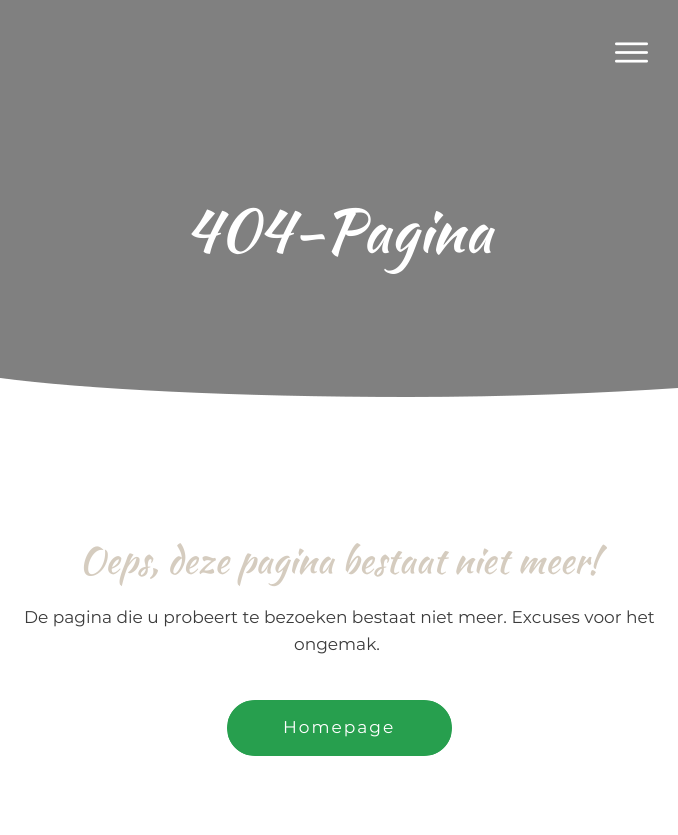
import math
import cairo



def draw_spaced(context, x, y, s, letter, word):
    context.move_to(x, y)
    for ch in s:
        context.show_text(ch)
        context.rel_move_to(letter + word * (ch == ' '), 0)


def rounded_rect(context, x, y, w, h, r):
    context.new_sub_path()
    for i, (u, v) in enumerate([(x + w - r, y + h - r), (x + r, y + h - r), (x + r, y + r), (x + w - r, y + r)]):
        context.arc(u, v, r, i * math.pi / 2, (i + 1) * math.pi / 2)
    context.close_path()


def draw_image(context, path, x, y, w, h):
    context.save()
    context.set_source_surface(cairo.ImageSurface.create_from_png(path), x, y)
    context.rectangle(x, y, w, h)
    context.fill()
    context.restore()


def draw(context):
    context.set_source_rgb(1, 1, 1)
    context.paint()
    context.set_source_rgb(128 / 255, 128 / 255, 128 / 255)
    context.rectangle(0, 0, 678, 397)
    context.fill()
    draw_image(context, "images/1.png", 615, 42, 33, 21)
    context.set_source_rgb(1, 1, 1)
    context.new_path()
    context.move_to(678, 400)
    context.line_to(678, 388)
    context.curve_to(603, 393, 510, 397, 408, 397)
    context.curve_to(237, 397, 82, 389, 0, 378)
    context.line_to(0, 400)
    context.close_path()
    context.fill()
    context.save()
    rounded_rect(context, 227, 700, 225, 56, 28)
    context.clip()
    context.set_source_rgb(39 / 255, 159 / 255, 78 / 255)
    context.rectangle(228, 701, 223, 54)
    context.fill()
    context.restore()
    rounded_rect(context, 227.5, 700.5, 224, 55, 27.5)
    context.set_source_rgb(39 / 255, 159 / 255, 78 / 255)
    context.set_line_width(1)
    context.stroke()
    context.select_font_face("Kaushan Script")
    context.set_font_size(60)
    context.set_source_rgb(1, 1, 1)
    context.move_to(185, 252)
    context.show_text("404-Pagina")
    context.set_font_size(36)
    context.set_source_rgb(213 / 255, 204 / 255, 191 / 255)
    context.move_to(79, 573)
    context.show_text("Oeps, deze pagina bestaat niet meer!")
    context.select_font_face("Montserrat")
    context.set_font_size(17)
    context.set_source_rgb(59 / 255, 59 / 255, 59 / 255)
    context.move_to(24, 623)
    context.show_text("De pagina die u probeert te bezoeken bestaat niet meer. Excuses voor het")
    context.move_to(294, 650)
    context.show_text("ongemak.")
    context.set_source_rgb(1, 1, 1)
    draw_spaced(context, 283, 733, "Homepage", 2, 0)


surface = cairo.ImageSurface(cairo.Format.RGB24, 678, 835)
context = cairo.Context(surface)
options = cairo.FontOptions()
options.set_hint_metrics(cairo.HintMetrics.OFF)
options.set_hint_style(cairo.HintStyle.NONE)
context.set_font_options(options)
context.set_miter_limit(4)
draw(context)
surface.write_to_png("out.png")
